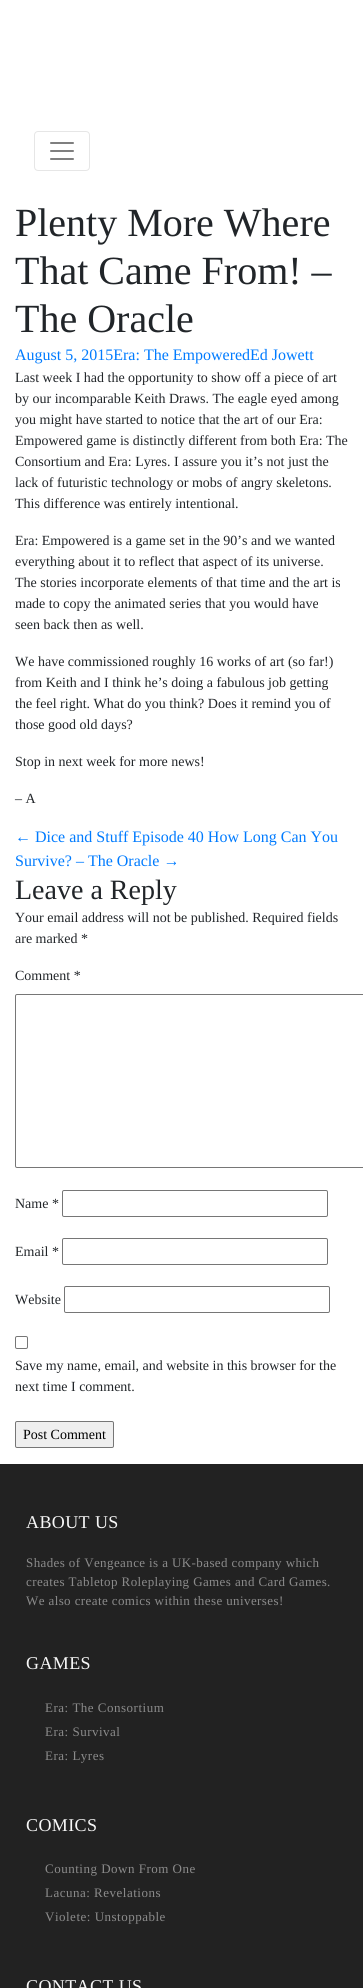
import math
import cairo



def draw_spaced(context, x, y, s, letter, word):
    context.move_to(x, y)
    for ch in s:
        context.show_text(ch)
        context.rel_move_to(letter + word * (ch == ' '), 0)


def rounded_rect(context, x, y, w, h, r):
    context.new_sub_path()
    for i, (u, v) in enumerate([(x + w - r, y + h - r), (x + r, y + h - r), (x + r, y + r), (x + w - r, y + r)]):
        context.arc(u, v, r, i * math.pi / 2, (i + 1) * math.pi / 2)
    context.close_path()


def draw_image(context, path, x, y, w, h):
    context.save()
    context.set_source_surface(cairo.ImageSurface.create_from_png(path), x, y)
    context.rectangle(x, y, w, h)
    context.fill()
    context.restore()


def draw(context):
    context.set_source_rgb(1, 1, 1)
    context.paint()
    rounded_rect(context, 34.5, 131.5, 55, 39, 3.5)
    context.set_source_rgb(230 / 255, 230 / 255, 230 / 255)
    context.set_line_width(1)
    context.stroke()
    draw_image(context, "images/1.png", 50, 142, 24, 18)
    rounded_rect(context, 15.5, 994.5, 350, 173, 1.5)
    context.set_source_rgb(118 / 255, 118 / 255, 118 / 255)
    context.stroke()
    rounded_rect(context, 62.5, 1190.5, 265, 26, 1.5)
    context.stroke()
    rounded_rect(context, 62.5, 1238.5, 265, 26, 1.5)
    context.stroke()
    rounded_rect(context, 64.5, 1286.5, 265, 26, 1.5)
    context.stroke()
    rounded_rect(context, 15.5, 1336.5, 12, 12, 1.5)
    context.stroke()
    context.set_source_rgb(239 / 255, 239 / 255, 239 / 255)
    rounded_rect(context, 15.5, 1421.5, 98, 26, 1.5)
    context.fill_preserve()
    context.set_source_rgb(118 / 255, 118 / 255, 118 / 255)
    context.stroke()
    context.set_source_rgb(34 / 255, 34 / 255, 34 / 255)
    context.rectangle(0, 1464, 363, 524)
    context.fill()
    context.select_font_face("Liberation Serif")
    context.set_font_size(40)
    context.set_source_rgb(33 / 255, 37 / 255, 41 / 255)
    context.move_to(15, 236)
    context.show_text("Plenty More Where")
    context.move_to(15, 284)
    context.show_text("That Came From! –")
    context.move_to(15, 332)
    context.show_text("The Oracle")
    context.set_font_size(16)
    context.set_source_rgb(0, 123 / 255, 1)
    context.move_to(15, 360)
    context.show_text("August 5, 2015Era: The EmpoweredEd Jowett")
    context.set_font_size(14)
    context.set_source_rgb(33 / 255, 37 / 255, 41 / 255)
    context.move_to(15, 382)
    context.show_text("Last week I had the opportunity to show off a piece of art")
    context.move_to(15, 403)
    context.show_text("by our incomparable Keith Draws. The eagle eyed among")
    context.move_to(15, 424)
    context.show_text("you might have started to notice that the art of our Era:")
    context.move_to(15, 445)
    context.show_text("Empowered game is distinctly different from both Era: The")
    context.move_to(15, 466)
    context.show_text("Consortium and Era: Lyres. I assure you it’s not just the")
    context.move_to(15, 487)
    context.show_text("lack of futuristic technology or mobs of angry skeletons.")
    context.move_to(15, 508)
    context.show_text("This difference was entirely intentional.")
    context.move_to(15, 545)
    context.show_text("Era: Empowered is a game set in the 90’s and we wanted")
    context.move_to(15, 566)
    context.show_text("everything about it to reflect that aspect of its universe.")
    context.move_to(15, 587)
    context.show_text("The stories incorporate elements of that time and the art is")
    context.move_to(15, 608)
    context.show_text("made to copy the animated series that you would have")
    context.move_to(15, 629)
    context.show_text("seen back then as well.")
    context.move_to(15, 666)
    context.show_text("We have commissioned roughly 16 works of art (so far!)")
    context.move_to(15, 687)
    context.show_text("from Keith and I think he’s doing a fabulous job getting")
    context.move_to(15, 708)
    context.show_text("the feel right. What do you think? Does it remind you of")
    context.move_to(15, 729)
    context.show_text("those good old days?")
    context.move_to(15, 766)
    context.show_text("Stop in next week for more news!")
    context.move_to(15, 803)
    context.show_text("– A")
    context.set_font_size(16)
    context.set_source_rgb(0, 123 / 255, 1)
    context.move_to(15, 842)
    context.show_text("← Dice and Stuff Episode 40 How Long Can You")
    context.move_to(15, 866)
    context.show_text("Survive? – The Oracle →")
    context.set_font_size(28)
    context.set_source_rgb(33 / 255, 37 / 255, 41 / 255)
    context.move_to(15, 899)
    context.show_text("Leave a Reply")
    context.set_font_size(14)
    context.move_to(15, 922)
    context.show_text("Your email address will not be published. Required fields")
    context.move_to(15, 943)
    context.show_text("are marked *")
    context.move_to(15, 980)
    context.show_text("Comment *")
    context.move_to(15, 1208)
    context.show_text("Name *")
    context.move_to(15, 1256)
    context.show_text("Email *")
    context.move_to(15, 1304)
    context.show_text("Website")
    context.move_to(15, 1370)
    context.show_text("Save my name, email, and website in this browser for the")
    context.move_to(15, 1391)
    context.show_text("next time I comment.")
    context.set_source_rgb(0, 0, 0)
    context.move_to(23, 1439)
    context.show_text("Post Comment")
    context.set_font_size(18)
    context.set_source_rgb(247 / 255, 247 / 255, 247 / 255)
    draw_spaced(context, 26, 1528, "ABOUT US", 0.4, 0)
    context.set_font_size(13)
    context.set_source_rgb(139 / 255, 139 / 255, 139 / 255)
    draw_spaced(context, 26, 1567, "Shades of Vengeance is a UK-based company which", 0.4, 0)
    draw_spaced(context, 26, 1586, "creates Tabletop Roleplaying Games and Card Games.", 0.4, 0)
    draw_spaced(context, 26, 1605, "We also create comics within these universes!", 0.4, 0)
    context.set_font_size(18)
    context.set_source_rgb(247 / 255, 247 / 255, 247 / 255)
    draw_spaced(context, 26, 1669, "GAMES", 0.4, 0)
    context.set_font_size(13)
    context.set_source_rgb(139 / 255, 139 / 255, 139 / 255)
    draw_spaced(context, 45, 1712, "Era: The Consortium", 0.5, 0)
    draw_spaced(context, 45, 1736, "Era: Survival", 0.5, 0)
    draw_spaced(context, 45, 1760, "Era: Lyres", 0.5, 0)
    context.set_font_size(18)
    context.set_source_rgb(247 / 255, 247 / 255, 247 / 255)
    draw_spaced(context, 26, 1831, "COMICS", 0.4, 0)
    context.set_font_size(13)
    context.set_source_rgb(139 / 255, 139 / 255, 139 / 255)
    draw_spaced(context, 45, 1873, "Counting Down From One", 0.5, 0)
    draw_spaced(context, 45, 1897, "Lacuna: Revelations", 0.5, 0)
    draw_spaced(context, 45, 1921, "Violete: Unstoppable", 0.5, 0)
    context.set_font_size(18)
    context.set_source_rgb(247 / 255, 247 / 255, 247 / 255)
    draw_spaced(context, 26, 1992, "CONTACT US", 0.4, 0)


surface = cairo.ImageSurface(cairo.Format.RGB24, 363, 1988)
context = cairo.Context(surface)
options = cairo.FontOptions()
options.set_hint_metrics(cairo.HintMetrics.OFF)
options.set_hint_style(cairo.HintStyle.NONE)
context.set_font_options(options)
context.set_miter_limit(4)
draw(context)
surface.write_to_png("out.png")
